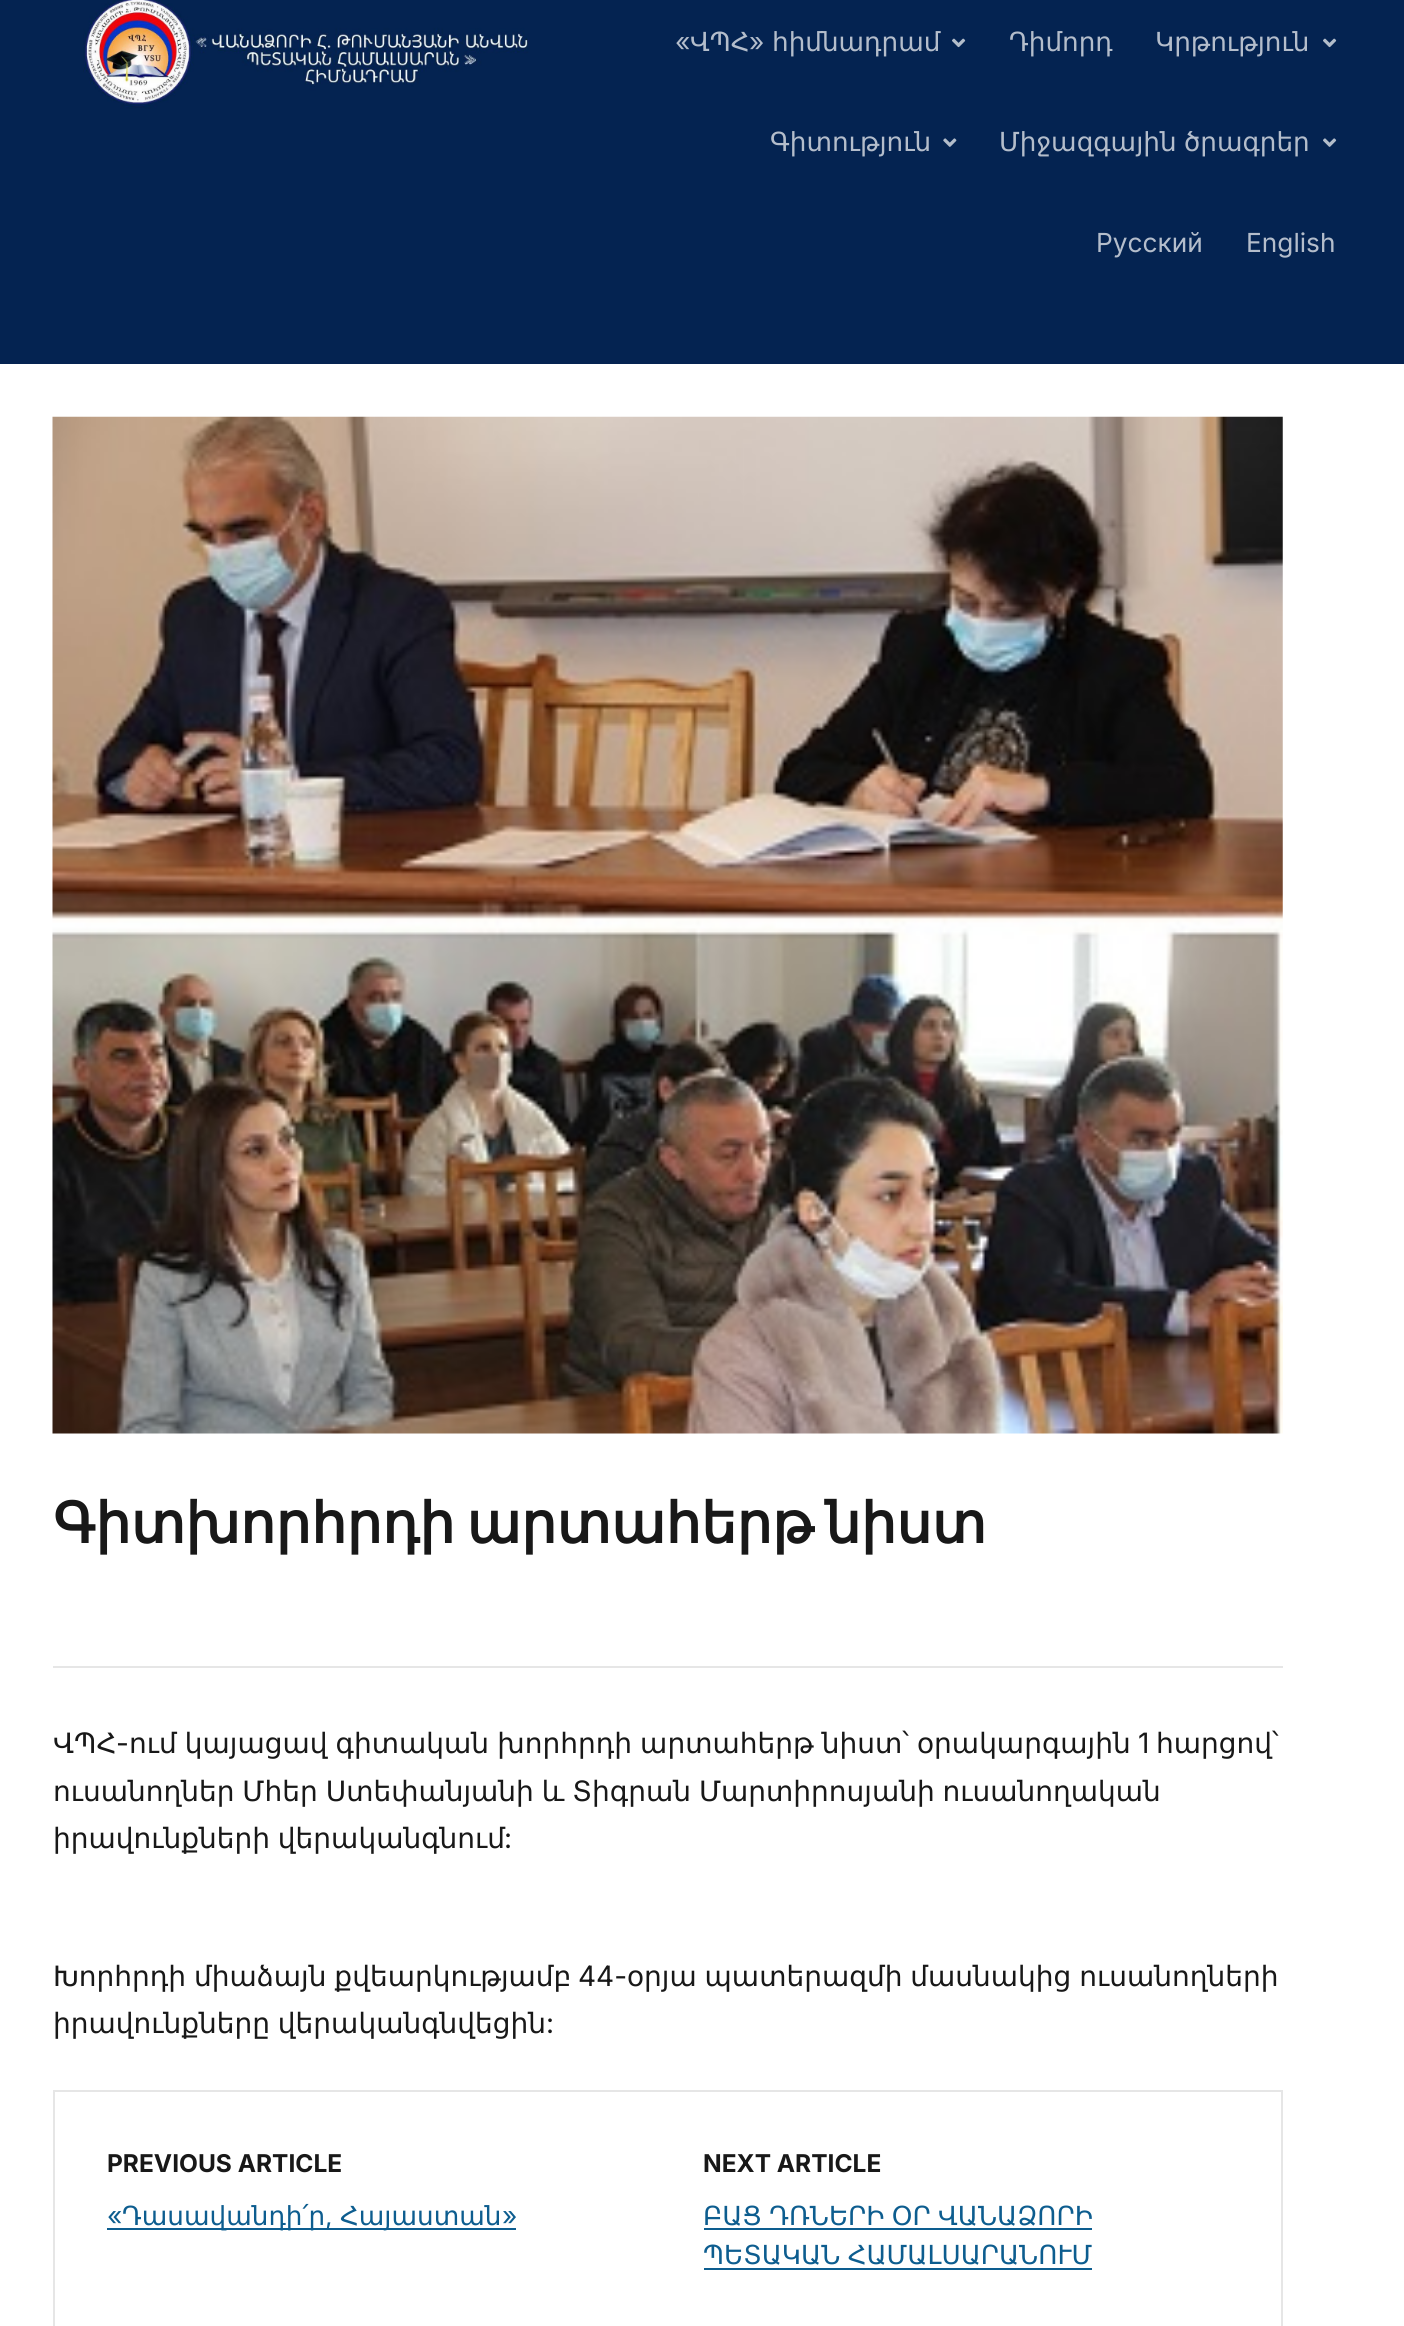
import math
import cairo



def draw_spaced(context, x, y, s, letter, word):
    context.move_to(x, y)
    for ch in s:
        context.show_text(ch)
        context.rel_move_to(letter + word * (ch == ' '), 0)


def draw_image(context, path, x, y, w, h):
    context.save()
    context.set_source_surface(cairo.ImageSurface.create_from_png(path), x, y)
    context.rectangle(x, y, w, h)
    context.fill()
    context.restore()


def draw(context):
    context.set_source_rgb(4 / 255, 35 / 255, 81 / 255)
    context.paint()
    draw_image(context, "images/1.png", 83, 0, 447, 109)
    draw_image(context, "images/2.png", 952, 38, 14, 10)
    draw_image(context, "images/2.png", 1323, 38, 14, 10)
    draw_image(context, "images/3.png", 943, 138, 14, 9)
    draw_image(context, "images/4.png", 1323, 138, 14, 9)
    context.set_source_rgb(1, 1, 1)
    context.rectangle(0, 364, 1404, 1962)
    context.fill()
    draw_image(context, "images/5.png", 52, 416, 1231, 1018)
    context.set_source_rgb(230 / 255, 230 / 255, 230 / 255)
    context.rectangle(53, 1666, 1230, 2)
    context.fill()
    context.rectangle(54, 2091, 1228, 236)
    context.stroke()
    context.set_source_rgb(13 / 255, 93 / 255, 143 / 255)
    context.rectangle(107, 2228, 409, 2)
    context.fill()
    context.rectangle(704, 2228, 388, 2)
    context.fill()
    context.rectangle(704, 2268, 388, 2)
    context.fill()
    context.select_font_face("Inter")
    context.set_font_size(26.25)
    context.set_source_rgb(180 / 255, 189 / 255, 203 / 255)
    context.move_to(675, 51)
    context.show_text("«")
    context.select_font_face("DejaVu Sans")
    context.move_to(690, 51)
    context.show_text("ՎՊՀ")
    context.select_font_face("Inter")
    context.move_to(749, 51)
    context.show_text("»")
    context.select_font_face("DejaVu Sans")
    context.move_to(772, 51)
    context.show_text("հիմնադրամ")
    context.move_to(1009, 51)
    context.show_text("Դիմորդ")
    context.move_to(1155, 51)
    context.show_text("Կրթություն")
    context.move_to(770, 151)
    context.show_text("Գիտություն")
    draw_spaced(context, 999, 151, "Միջազգային ծրագրեր", 0, -1)
    context.select_font_face("Inter")
    context.move_to(1096, 252)
    context.show_text("Русский")
    context.move_to(1246, 252)
    context.show_text("English")
    context.select_font_face("DejaVu Sans", cairo.FontSlant.NORMAL, cairo.FontWeight.BOLD)
    context.set_font_size(56)
    context.set_source_rgb(24 / 255, 24 / 255, 24 / 255)
    draw_spaced(context, 53, 1543, "Գիտխորհրդի արտահերթ նիստ", 0, -6)
    context.select_font_face("DejaVu Sans")
    context.set_font_size(28)
    context.move_to(53, 1753)
    context.show_text("ՎՊՀ")
    context.select_font_face("Inter")
    context.move_to(116, 1753)
    context.show_text("-")
    context.select_font_face("DejaVu Sans")
    draw_spaced(context, 129, 1753, "ում կայացավ գիտական խորհրդի արտահերթ նիստ՝ օրակարգային", 0, -0.75)
    context.select_font_face("Inter")
    context.move_to(1138, 1753)
    context.show_text("1")
    context.select_font_face("DejaVu Sans")
    context.move_to(1156, 1753)
    context.show_text("հարցով՝")
    draw_spaced(context, 53, 1801, "ուսանողներ Մհեր Ստեփանյանի և Տիգրան Մարտիրոսյանի ուսանողական", 0, -1)
    draw_spaced(context, 53, 1848, "իրավունքների վերականգնում", 0, -1)
    context.select_font_face("Inter")
    context.move_to(504, 1848)
    context.show_text(":")
    context.select_font_face("DejaVu Sans")
    draw_spaced(context, 53, 1986, "Խորհրդի միաձայն քվեարկությամբ", 0, -1)
    context.select_font_face("Inter")
    context.move_to(578, 1986)
    context.show_text("44-")
    context.select_font_face("DejaVu Sans")
    draw_spaced(context, 627, 1986, "օրյա պատերազմի մասնակից ուսանողների", 0, -1)
    draw_spaced(context, 53, 2033, "իրավունքները վերականգնվեցին", 0, -1)
    context.select_font_face("Inter")
    context.move_to(546, 2033)
    context.show_text(":")
    context.select_font_face("Inter", cairo.FontSlant.NORMAL, cairo.FontWeight.BOLD)
    context.set_font_size(24.5)
    context.move_to(107, 2172)
    context.show_text("PREVIOUS ARTICLE")
    context.select_font_face("Inter")
    context.set_font_size(26.25)
    context.set_source_rgb(13 / 255, 93 / 255, 143 / 255)
    context.move_to(107, 2225)
    context.show_text("«")
    context.select_font_face("DejaVu Sans")
    context.move_to(122, 2225)
    context.show_text("Դասավանդի՛ր")
    context.move_to(340, 2225)
    context.show_text("Հայաստան")
    context.select_font_face("Inter")
    context.move_to(502, 2225)
    context.show_text("»")
    context.move_to(325, 2225)
    context.show_text(",")
    context.select_font_face("Inter", cairo.FontSlant.NORMAL, cairo.FontWeight.BOLD)
    context.set_font_size(24.5)
    context.set_source_rgb(24 / 255, 24 / 255, 24 / 255)
    context.move_to(703, 2172)
    context.show_text("NEXT ARTICLE")
    context.select_font_face("DejaVu Sans")
    context.set_font_size(26.25)
    context.set_source_rgb(13 / 255, 93 / 255, 143 / 255)
    draw_spaced(context, 703, 2225, "ԲԱՑ ԴՌՆԵՐԻ ՕՐ ՎԱՆԱՁՈՐԻ", 0, -1)
    draw_spaced(context, 703, 2264, "ՊԵՏԱԿԱՆ ՀԱՄԱԼՍԱՐԱՆՈՒՄ", 0, -1)


surface = cairo.ImageSurface(cairo.Format.RGB24, 1404, 2326)
context = cairo.Context(surface)
options = cairo.FontOptions()
options.set_hint_metrics(cairo.HintMetrics.OFF)
options.set_hint_style(cairo.HintStyle.NONE)
context.set_font_options(options)
context.set_miter_limit(4)
draw(context)
surface.write_to_png("out.png")
